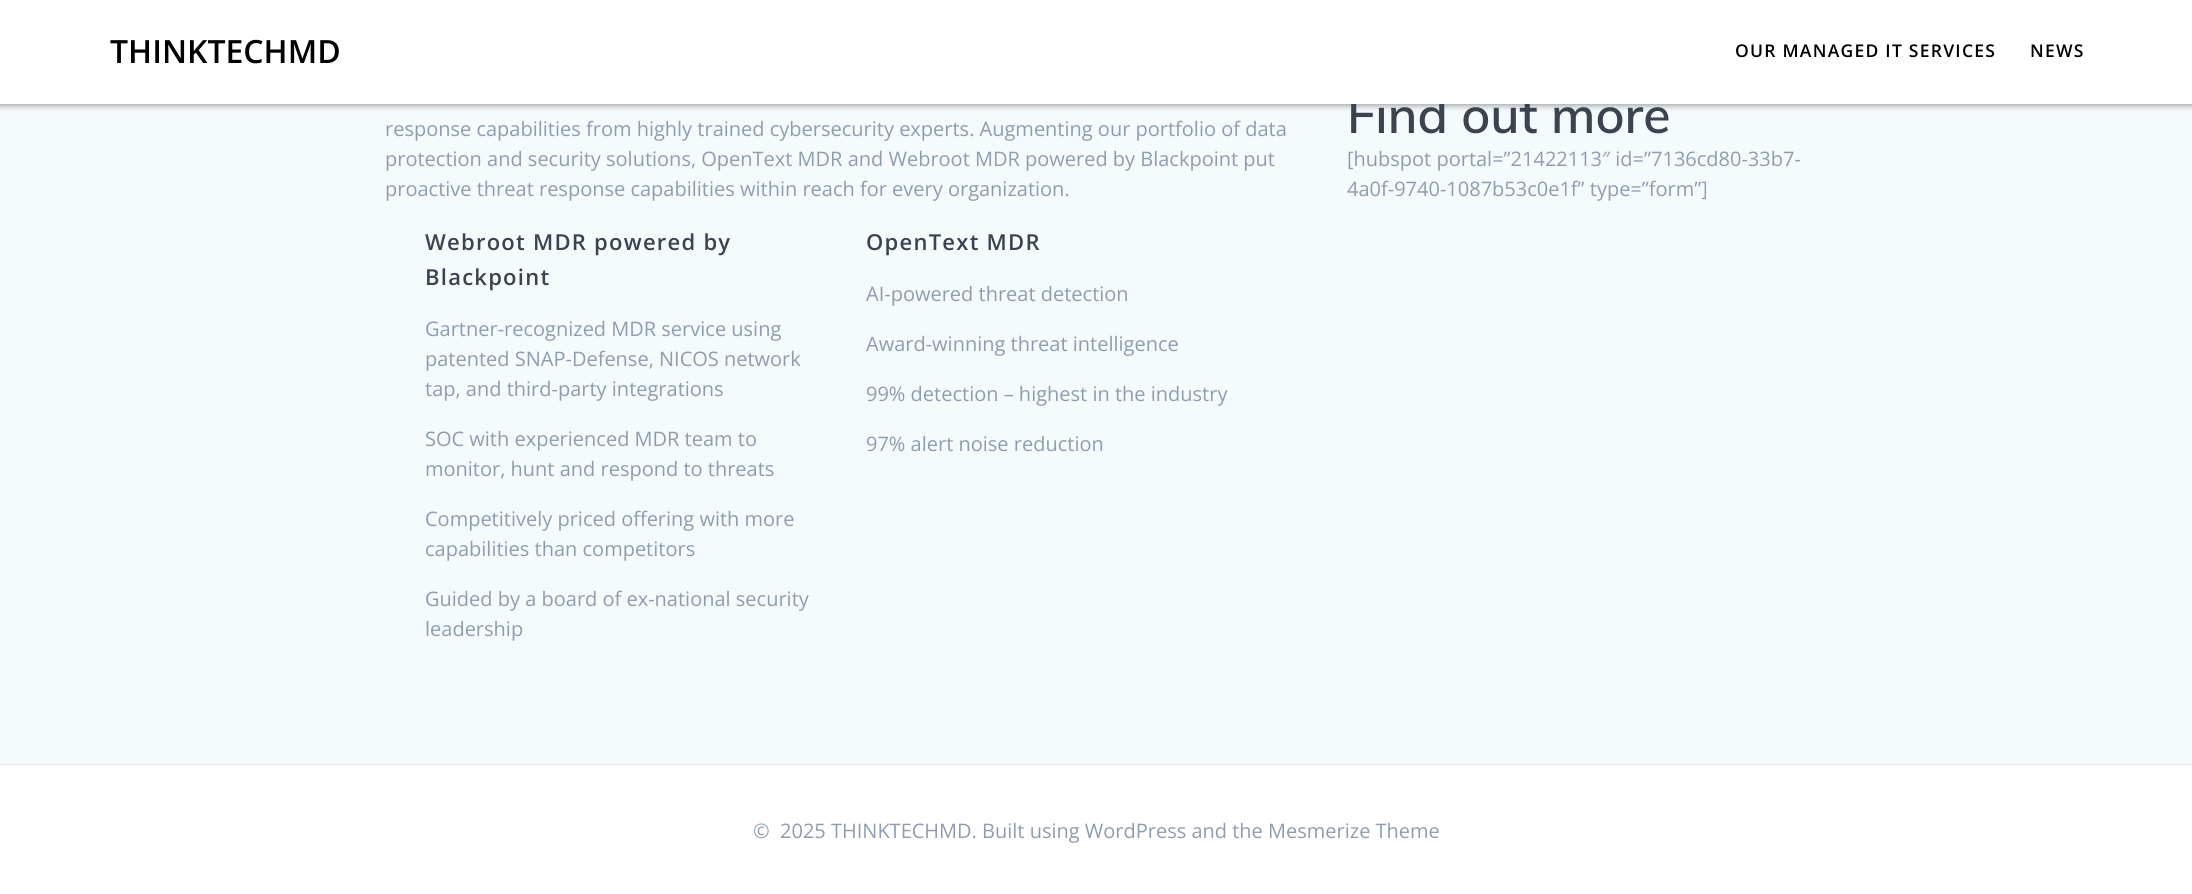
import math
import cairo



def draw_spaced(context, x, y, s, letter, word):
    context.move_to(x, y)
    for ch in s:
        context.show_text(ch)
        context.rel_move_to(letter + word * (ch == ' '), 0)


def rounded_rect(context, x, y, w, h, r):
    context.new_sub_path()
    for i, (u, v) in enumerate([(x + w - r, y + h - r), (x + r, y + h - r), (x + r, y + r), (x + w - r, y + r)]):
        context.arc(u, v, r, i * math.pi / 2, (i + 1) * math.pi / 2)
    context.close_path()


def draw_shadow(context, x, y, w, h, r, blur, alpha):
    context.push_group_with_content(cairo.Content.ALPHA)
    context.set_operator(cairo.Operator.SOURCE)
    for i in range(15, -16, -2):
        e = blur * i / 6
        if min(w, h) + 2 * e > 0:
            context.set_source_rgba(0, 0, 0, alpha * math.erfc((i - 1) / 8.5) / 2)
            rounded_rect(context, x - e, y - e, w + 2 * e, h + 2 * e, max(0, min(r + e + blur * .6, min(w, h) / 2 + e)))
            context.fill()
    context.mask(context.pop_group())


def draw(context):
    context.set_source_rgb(245 / 255, 250 / 255, 253 / 255)
    context.paint()
    context.set_source_rgb(0, 0, 0)
    draw_shadow(context, -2, -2, 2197, 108, 0, 3, 0.33)
    context.set_source_rgb(1, 1, 1)
    context.rectangle(0, 765, 2192, 129)
    context.fill()
    context.set_source_rgb(232 / 255, 232 / 255, 232 / 255)
    context.rectangle(0, 764, 2192, 1)
    context.fill()
    context.select_font_face("Open Sans")
    context.set_font_size(20)
    context.set_source_rgb(142 / 255, 157 / 255, 174 / 255)
    context.move_to(385, 136)
    context.show_text("response capabilities from highly trained cybersecurity experts. Augmenting our portfolio of data")
    context.move_to(385, 166)
    context.show_text("protection and security solutions, OpenText MDR and Webroot MDR powered by Blackpoint put")
    context.move_to(385, 196)
    context.show_text("proactive threat response capabilities within reach for every organization.")
    context.select_font_face("Open Sans SemiBold")
    context.set_font_size(22)
    context.set_source_rgb(60 / 255, 66 / 255, 79 / 255)
    draw_spaced(context, 425, 250, "Webroot MDR powered by", 1.25, 0)
    draw_spaced(context, 425, 285, "Blackpoint", 1.25, 0)
    context.select_font_face("Open Sans")
    context.set_font_size(20)
    context.set_source_rgb(142 / 255, 157 / 255, 174 / 255)
    context.move_to(425, 336)
    context.show_text("Gartner-recognized MDR service using")
    context.move_to(425, 366)
    context.show_text("patented SNAP-Defense, NICOS network")
    context.move_to(425, 396)
    context.show_text("tap, and third-party integrations")
    context.move_to(425, 446)
    context.show_text("SOC with experienced MDR team to")
    context.move_to(425, 476)
    context.show_text("monitor, hunt and respond to threats")
    context.move_to(425, 526)
    context.show_text("Competitively priced offering with more")
    context.move_to(425, 556)
    context.show_text("capabilities than competitors")
    context.move_to(425, 606)
    context.show_text("Guided by a board of ex-national security")
    context.move_to(425, 636)
    context.show_text("leadership")
    context.select_font_face("Open Sans SemiBold")
    context.set_font_size(22)
    context.set_source_rgb(60 / 255, 66 / 255, 79 / 255)
    draw_spaced(context, 866, 250, "OpenText MDR", 1.25, 0)
    context.select_font_face("Open Sans")
    context.set_font_size(20)
    context.set_source_rgb(142 / 255, 157 / 255, 174 / 255)
    context.move_to(866, 301)
    context.show_text("AI-powered threat detection")
    context.move_to(866, 351)
    context.show_text("Award-winning threat intelligence")
    context.move_to(866, 401)
    context.show_text("99% detection – highest in the industry")
    context.move_to(866, 451)
    context.show_text("97% alert noise reduction")
    context.select_font_face("Muli SemiBold")
    context.set_font_size(50)
    context.set_source_rgb(60 / 255, 66 / 255, 79 / 255)
    context.move_to(1347, 133)
    context.show_text("Find out more")
    context.set_source_rgb(1, 1, 1)
    context.rectangle(0, 0, 2192, 104)
    context.fill()
    context.select_font_face("Open Sans SemiBold")
    context.set_font_size(17.5)
    context.set_source_rgb(0, 0, 0)
    draw_spaced(context, 2030, 57, "NEWS", 1.25, 0)
    draw_spaced(context, 1735, 57, "OUR MANAGED IT SERVICES", 1.25, 0)
    context.set_font_size(32)
    context.move_to(110, 63)
    context.show_text("THINKTECHMD")
    context.select_font_face("Open Sans")
    context.set_font_size(20)
    context.set_source_rgb(142 / 255, 157 / 255, 174 / 255)
    context.move_to(1347, 166)
    context.show_text("[hubspot portal=”21422113″ id=”7136cd80-33b7-")
    context.move_to(1347, 196)
    context.show_text("4a0f-9740-1087b53c0e1f” type=”form”]")
    context.move_to(753, 838)
    context.show_text("©  2025 THINKTECHMD. Built using WordPress and the Mesmerize Theme")


surface = cairo.ImageSurface(cairo.Format.RGB24, 2192, 894)
context = cairo.Context(surface)
options = cairo.FontOptions()
options.set_hint_metrics(cairo.HintMetrics.OFF)
options.set_hint_style(cairo.HintStyle.NONE)
context.set_font_options(options)
context.set_miter_limit(4)
draw(context)
surface.write_to_png("out.png")
